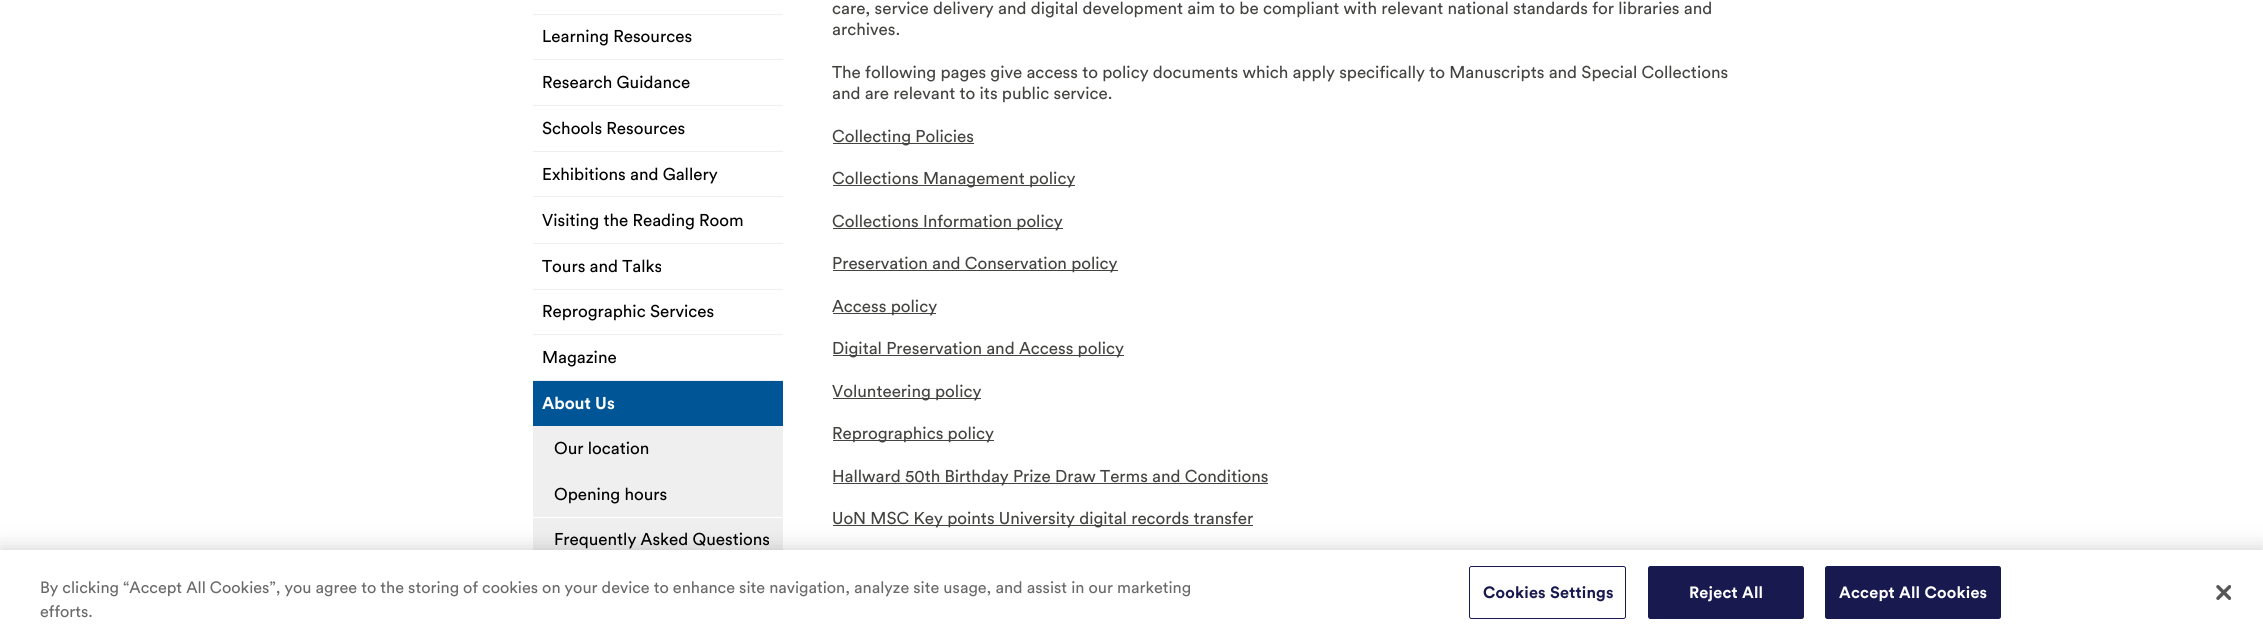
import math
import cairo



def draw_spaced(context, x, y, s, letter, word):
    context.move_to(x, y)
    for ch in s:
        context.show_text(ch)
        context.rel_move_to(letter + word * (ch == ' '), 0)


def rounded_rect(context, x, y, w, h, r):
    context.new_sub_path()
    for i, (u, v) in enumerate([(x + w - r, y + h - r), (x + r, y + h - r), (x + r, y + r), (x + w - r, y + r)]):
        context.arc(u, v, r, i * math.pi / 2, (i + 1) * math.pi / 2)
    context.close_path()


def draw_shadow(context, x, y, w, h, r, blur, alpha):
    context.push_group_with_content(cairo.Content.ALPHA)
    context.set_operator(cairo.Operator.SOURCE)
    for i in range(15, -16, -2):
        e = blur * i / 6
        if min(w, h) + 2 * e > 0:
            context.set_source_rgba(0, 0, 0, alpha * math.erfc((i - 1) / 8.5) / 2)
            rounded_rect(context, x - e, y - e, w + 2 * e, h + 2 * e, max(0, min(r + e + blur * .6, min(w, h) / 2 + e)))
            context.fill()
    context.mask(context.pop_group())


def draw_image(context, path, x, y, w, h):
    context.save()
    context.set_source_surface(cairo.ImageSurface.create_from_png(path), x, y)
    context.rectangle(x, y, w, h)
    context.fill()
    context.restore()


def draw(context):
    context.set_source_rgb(1, 1, 1)
    context.paint()
    context.set_source_rgb(239 / 255, 239 / 255, 239 / 255)
    context.rectangle(533, 14, 250, 1)
    context.fill()
    context.rectangle(533, 59, 250, 1)
    context.fill()
    context.rectangle(533, 105, 250, 1)
    context.fill()
    context.rectangle(533, 151, 250, 1)
    context.fill()
    context.rectangle(533, 196, 250, 1)
    context.fill()
    context.rectangle(533, 243, 250, 1)
    context.fill()
    context.rectangle(533, 289, 250, 1)
    context.fill()
    context.rectangle(533, 334, 250, 1)
    context.fill()
    context.rectangle(533, 380, 250, 1)
    context.fill()
    context.set_source_rgb(0, 85 / 255, 151 / 255)
    context.rectangle(533, 381, 250, 45)
    context.fill()
    context.set_source_rgb(239 / 255, 239 / 255, 239 / 255)
    context.rectangle(533, 426, 250, 45)
    context.fill()
    context.rectangle(533, 471, 250, 46)
    context.fill()
    context.rectangle(533, 518, 250, 32)
    context.fill()
    context.set_source_rgb(67 / 255, 67 / 255, 65 / 255)
    context.rectangle(833, 143, 141, 1)
    context.fill()
    context.rectangle(833, 185, 242, 1)
    context.fill()
    context.rectangle(833, 228, 230, 1)
    context.fill()
    context.rectangle(833, 270, 285, 1)
    context.fill()
    context.rectangle(833, 313, 103, 1)
    context.fill()
    context.rectangle(833, 355, 291, 1)
    context.fill()
    context.rectangle(833, 398, 148, 1)
    context.fill()
    context.rectangle(833, 440, 161, 1)
    context.fill()
    context.rectangle(833, 483, 435, 1)
    context.fill()
    context.rectangle(833, 525, 420, 1)
    context.fill()
    context.set_source_rgb(0, 0, 0)
    draw_shadow(context, 0, 550, 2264, 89, 0, 11, 0.2)
    context.set_source_rgb(1, 1, 1)
    context.rectangle(0, 550, 2263, 88)
    context.fill()
    rounded_rect(context, 1469.5, 566.5, 156, 52, 2)
    context.set_source_rgb(24 / 255, 25 / 255, 79 / 255)
    context.set_line_width(1)
    context.stroke()
    rounded_rect(context, 1648.5, 566.5, 155, 52, 2)
    context.fill_preserve()
    context.stroke()
    rounded_rect(context, 1825.5, 566.5, 175, 52, 2)
    context.fill_preserve()
    context.stroke()
    draw_image(context, "images/1.png", 2216, 585, 15, 15)
    context.select_font_face("Circular")
    context.set_font_size(17)
    context.set_source_rgb(0, 0, 0)
    context.move_to(542, 42)
    context.show_text("Learning Resources")
    context.move_to(542, 88)
    context.show_text("Research Guidance")
    context.move_to(542, 134)
    context.show_text("Schools Resources")
    context.move_to(542, 180)
    context.show_text("Exhibitions and Gallery")
    context.move_to(542, 226)
    context.show_text("Visiting the Reading Room")
    context.move_to(542, 272)
    context.show_text("Tours and Talks")
    context.move_to(542, 317)
    context.show_text("Reprographic Services")
    context.move_to(542, 363)
    context.show_text("Magazine")
    context.select_font_face("Circular", cairo.FontSlant.NORMAL, cairo.FontWeight.BOLD)
    context.set_source_rgb(1, 1, 1)
    context.move_to(542, 409)
    context.show_text("About Us")
    context.select_font_face("Circular")
    context.set_source_rgb(0, 0, 0)
    context.move_to(554, 454)
    context.show_text("Our location")
    context.move_to(554, 500)
    context.show_text("Opening hours")
    context.move_to(554, 545)
    context.show_text("Frequently Asked Questions")
    context.set_source_rgb(67 / 255, 67 / 255, 65 / 255)
    context.move_to(832, 14)
    context.show_text("care, service delivery and digital development aim to be compliant with relevant national standards for libraries and")
    context.move_to(832, 35)
    context.show_text("archives.")
    context.move_to(832, 78)
    context.show_text("The following pages give access to policy documents which apply specifically to Manuscripts and Special Collections")
    context.move_to(832, 99)
    context.show_text("and are relevant to its public service.")
    context.move_to(832, 142)
    context.show_text("Collecting Policies")
    context.move_to(832, 184)
    context.show_text("Collections Management policy")
    context.move_to(832, 227)
    context.show_text("Collections Information policy")
    context.move_to(832, 269)
    context.show_text("Preservation and Conservation policy")
    context.move_to(832, 312)
    context.show_text("Access policy")
    context.move_to(832, 354)
    context.show_text("Digital Preservation and Access policy")
    context.move_to(832, 397)
    context.show_text("Volunteering policy")
    context.move_to(832, 439)
    context.show_text("Reprographics policy")
    context.move_to(832, 482)
    context.show_text("Hallward 50th Birthday Prize Draw Terms and Conditions")
    context.move_to(832, 524)
    context.show_text("UoN MSC Key points University digital records transfer")
    context.set_font_size(16.25)
    context.set_source_rgb(105 / 255, 105 / 255, 105 / 255)
    context.move_to(40, 593)
    context.show_text("By clicking “Accept All Cookies”, you agree to the storing of cookies on your device to enhance site navigation, analyze site usage, and assist in our marketing")
    context.move_to(40, 617)
    context.show_text("efforts.")
    context.select_font_face("Circular", cairo.FontSlant.NORMAL, cairo.FontWeight.BOLD)
    context.set_source_rgb(24 / 255, 25 / 255, 79 / 255)
    draw_spaced(context, 1483, 598, "Cookies Settings", 0.2, 0)
    context.set_source_rgb(1, 1, 1)
    draw_spaced(context, 1689, 598, "Reject All", 0.2, 0)
    draw_spaced(context, 1839, 598, "Accept All Cookies", 0.2, 0)


surface = cairo.ImageSurface(cairo.Format.RGB24, 2263, 638)
context = cairo.Context(surface)
options = cairo.FontOptions()
options.set_hint_metrics(cairo.HintMetrics.OFF)
options.set_hint_style(cairo.HintStyle.NONE)
context.set_font_options(options)
context.set_miter_limit(4)
draw(context)
surface.write_to_png("out.png")
